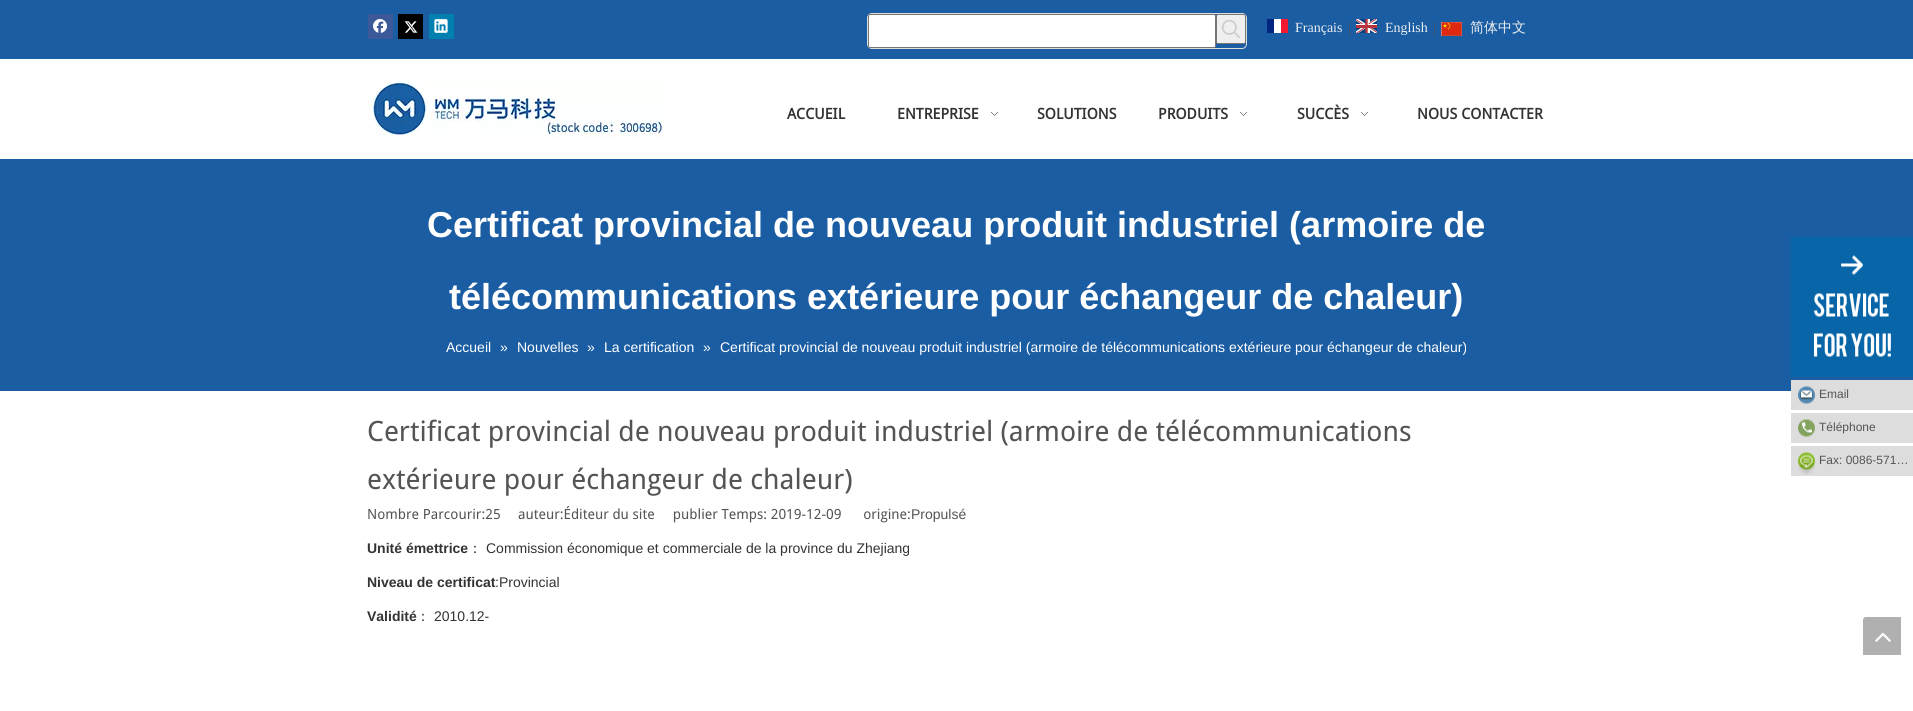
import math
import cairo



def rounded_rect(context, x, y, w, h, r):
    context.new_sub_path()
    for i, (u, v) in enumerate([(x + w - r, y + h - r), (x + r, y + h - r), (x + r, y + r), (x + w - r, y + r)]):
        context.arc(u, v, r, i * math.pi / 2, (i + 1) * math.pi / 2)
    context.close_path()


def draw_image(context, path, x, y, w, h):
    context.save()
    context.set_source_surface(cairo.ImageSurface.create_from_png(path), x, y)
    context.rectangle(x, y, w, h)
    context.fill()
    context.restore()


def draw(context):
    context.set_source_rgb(1, 1, 1)
    context.paint()
    context.set_source_rgb(26 / 255, 93 / 255, 163 / 255)
    context.rectangle(0, 0, 1913, 59)
    context.fill()
    context.set_source_rgb(59 / 255, 89 / 255, 152 / 255)
    context.rectangle(368, 14, 25, 25)
    context.fill()
    draw_image(context, "images/1.png", 373, 19, 14, 14)
    context.set_source_rgb(0, 0, 0)
    context.rectangle(398, 14, 25, 25)
    context.fill()
    draw_image(context, "images/2.png", 404, 21, 14, 12)
    context.set_source_rgb(0, 127 / 255, 177 / 255)
    context.rectangle(429, 14, 25, 25)
    context.fill()
    draw_image(context, "images/3.png", 434, 19, 14, 14)
    rounded_rect(context, 867.5, 13.5, 379, 35, 4.5)
    context.set_source_rgb(221 / 255, 221 / 255, 221 / 255)
    context.set_line_width(1)
    context.stroke()
    context.set_source_rgb(1, 1, 1)
    rounded_rect(context, 868.5, 14.5, 347, 33, 1.5)
    context.fill_preserve()
    context.set_source_rgb(118 / 255, 118 / 255, 118 / 255)
    context.stroke()
    context.set_source_rgb(239 / 255, 239 / 255, 239 / 255)
    rounded_rect(context, 1216.5, 14.5, 29, 29, 1.5)
    context.fill_preserve()
    context.set_source_rgb(118 / 255, 118 / 255, 118 / 255)
    context.stroke()
    draw_image(context, "images/4.png", 1221, 19, 19, 19)
    draw_image(context, "images/5.png", 1267, 19, 21, 14)
    draw_image(context, "images/6.png", 1356, 19, 21, 14)
    draw_image(context, "images/7.png", 1441, 22, 21, 14)
    draw_image(context, "images/8.png", 367, 81, 297, 57)
    draw_image(context, "images/9.png", 991, 112, 7, 4)
    draw_image(context, "images/9.png", 1240, 112, 7, 4)
    draw_image(context, "images/9.png", 1361, 112, 7, 4)
    context.set_source_rgb(26 / 255, 93 / 255, 163 / 255)
    context.rectangle(0, 159, 1913, 232)
    context.fill()
    context.set_source_rgb(8 / 255, 101 / 255, 167 / 255)
    context.rectangle(1791, 237, 122, 140)
    context.fill()
    draw_image(context, "images/10.png", 1814, 255, 77, 102)
    context.set_source_rgb(221 / 255, 221 / 255, 221 / 255)
    context.rectangle(1791, 380, 122, 30)
    context.fill()
    draw_image(context, "images/11.png", 1798, 386, 17, 18)
    context.rectangle(1791, 413, 122, 30)
    context.fill()
    draw_image(context, "images/12.png", 1798, 419, 17, 18)
    context.rectangle(1791, 446, 122, 30)
    context.fill()
    draw_image(context, "images/13.png", 1798, 452, 17, 23)
    draw_image(context, "images/14.png", 1863, 617, 38, 38)
    context.select_font_face("Liberation Serif")
    context.set_font_size(14)
    context.set_source_rgb(238 / 255, 238 / 255, 238 / 255)
    context.move_to(1295, 32)
    context.show_text("Français")
    context.set_source_rgb(84 / 255, 84 / 255, 84 / 255)
    context.move_to(1348, 32)
    context.show_text("|")
    context.set_source_rgb(238 / 255, 238 / 255, 238 / 255)
    context.move_to(1385, 32)
    context.show_text("English")
    context.set_source_rgb(84 / 255, 84 / 255, 84 / 255)
    context.move_to(1433, 32)
    context.show_text("|")
    context.select_font_face("WenQuanYi Zen Hei Medium")
    context.set_source_rgb(238 / 255, 238 / 255, 238 / 255)
    context.move_to(1470, 32)
    context.show_text("简体中文")
    context.select_font_face("Droid Sans", cairo.FontSlant.NORMAL, cairo.FontWeight.BOLD)
    context.set_font_size(15)
    context.set_source_rgb(51 / 255, 51 / 255, 51 / 255)
    context.move_to(787, 119)
    context.show_text("ACCUEIL")
    context.move_to(897, 119)
    context.show_text("ENTREPRISE")
    context.move_to(1037, 119)
    context.show_text("SOLUTIONS")
    context.move_to(1158, 119)
    context.show_text("PRODUITS")
    context.move_to(1297, 119)
    context.show_text("SUCCÈS")
    context.move_to(1417, 119)
    context.show_text("NOUS CONTACTER")
    context.select_font_face("Liberation Sans", cairo.FontSlant.NORMAL, cairo.FontWeight.BOLD)
    context.set_font_size(36)
    context.set_source_rgb(1, 1, 1)
    context.move_to(427, 237)
    context.show_text("Certificat provincial de nouveau produit industriel (armoire de")
    context.move_to(449, 309)
    context.show_text("télécommunications extérieure pour échangeur de chaleur)")
    context.select_font_face("Liberation Sans")
    context.set_font_size(14)
    context.move_to(446, 352)
    context.show_text("Accueil")
    context.move_to(500, 352)
    context.show_text("»")
    context.move_to(517, 352)
    context.show_text("Nouvelles")
    context.move_to(587, 352)
    context.show_text("»")
    context.move_to(604, 352)
    context.show_text("La certification")
    context.move_to(703, 352)
    context.show_text("»")
    context.move_to(720, 352)
    context.show_text("Certificat provincial de nouveau produit industriel (armoire de télécommunications extérieure pour échangeur de chaleur)")
    context.select_font_face("Droid Sans")
    context.set_font_size(28)
    context.set_source_rgb(84 / 255, 84 / 255, 84 / 255)
    context.move_to(367, 441)
    context.show_text("Certificat provincial de nouveau produit industriel (armoire de télécommunications")
    context.move_to(367, 489)
    context.show_text("extérieure pour échangeur de chaleur)")
    context.set_font_size(14)
    context.move_to(367, 519)
    context.show_text("Nombre Parcourir:25")
    context.move_to(518, 519)
    context.show_text("auteur:Éditeur du site     publier Temps: 2019-12-09      origine:")
    context.select_font_face("Liberation Sans")
    context.move_to(911, 519)
    context.show_text("Propulsé")
    context.select_font_face("Liberation Sans", cairo.FontSlant.NORMAL, cairo.FontWeight.BOLD)
    context.set_source_rgb(51 / 255, 51 / 255, 51 / 255)
    context.move_to(367, 553)
    context.show_text("Unité émettrice")
    context.select_font_face("WenQuanYi Zen Hei Medium")
    context.move_to(468, 553)
    context.show_text("：")
    context.select_font_face("Liberation Sans")
    context.move_to(486, 553)
    context.show_text("Commission économique et commerciale de la province du Zhejiang")
    context.select_font_face("Liberation Sans", cairo.FontSlant.NORMAL, cairo.FontWeight.BOLD)
    context.move_to(367, 587)
    context.show_text("Niveau de certificat")
    context.select_font_face("Liberation Sans")
    context.move_to(495, 587)
    context.show_text(":Provincial")
    context.select_font_face("Liberation Sans", cairo.FontSlant.NORMAL, cairo.FontWeight.BOLD)
    context.move_to(367, 621)
    context.show_text("Validité")
    context.select_font_face("WenQuanYi Zen Hei Medium")
    context.move_to(416, 621)
    context.show_text("：")
    context.select_font_face("Liberation Sans")
    context.move_to(434, 621)
    context.show_text("2010.12-")
    context.set_font_size(12)
    context.set_source_rgb(84 / 255, 84 / 255, 84 / 255)
    context.move_to(1819, 398)
    context.show_text("Email")
    context.move_to(1819, 431)
    context.show_text("Téléphone")
    context.move_to(1819, 464)
    context.show_text("Fax: 0086-571…")


surface = cairo.ImageSurface(cairo.Format.RGB24, 1913, 711)
context = cairo.Context(surface)
options = cairo.FontOptions()
options.set_hint_metrics(cairo.HintMetrics.OFF)
options.set_hint_style(cairo.HintStyle.NONE)
context.set_font_options(options)
context.set_miter_limit(4)
draw(context)
surface.write_to_png("out.png")
